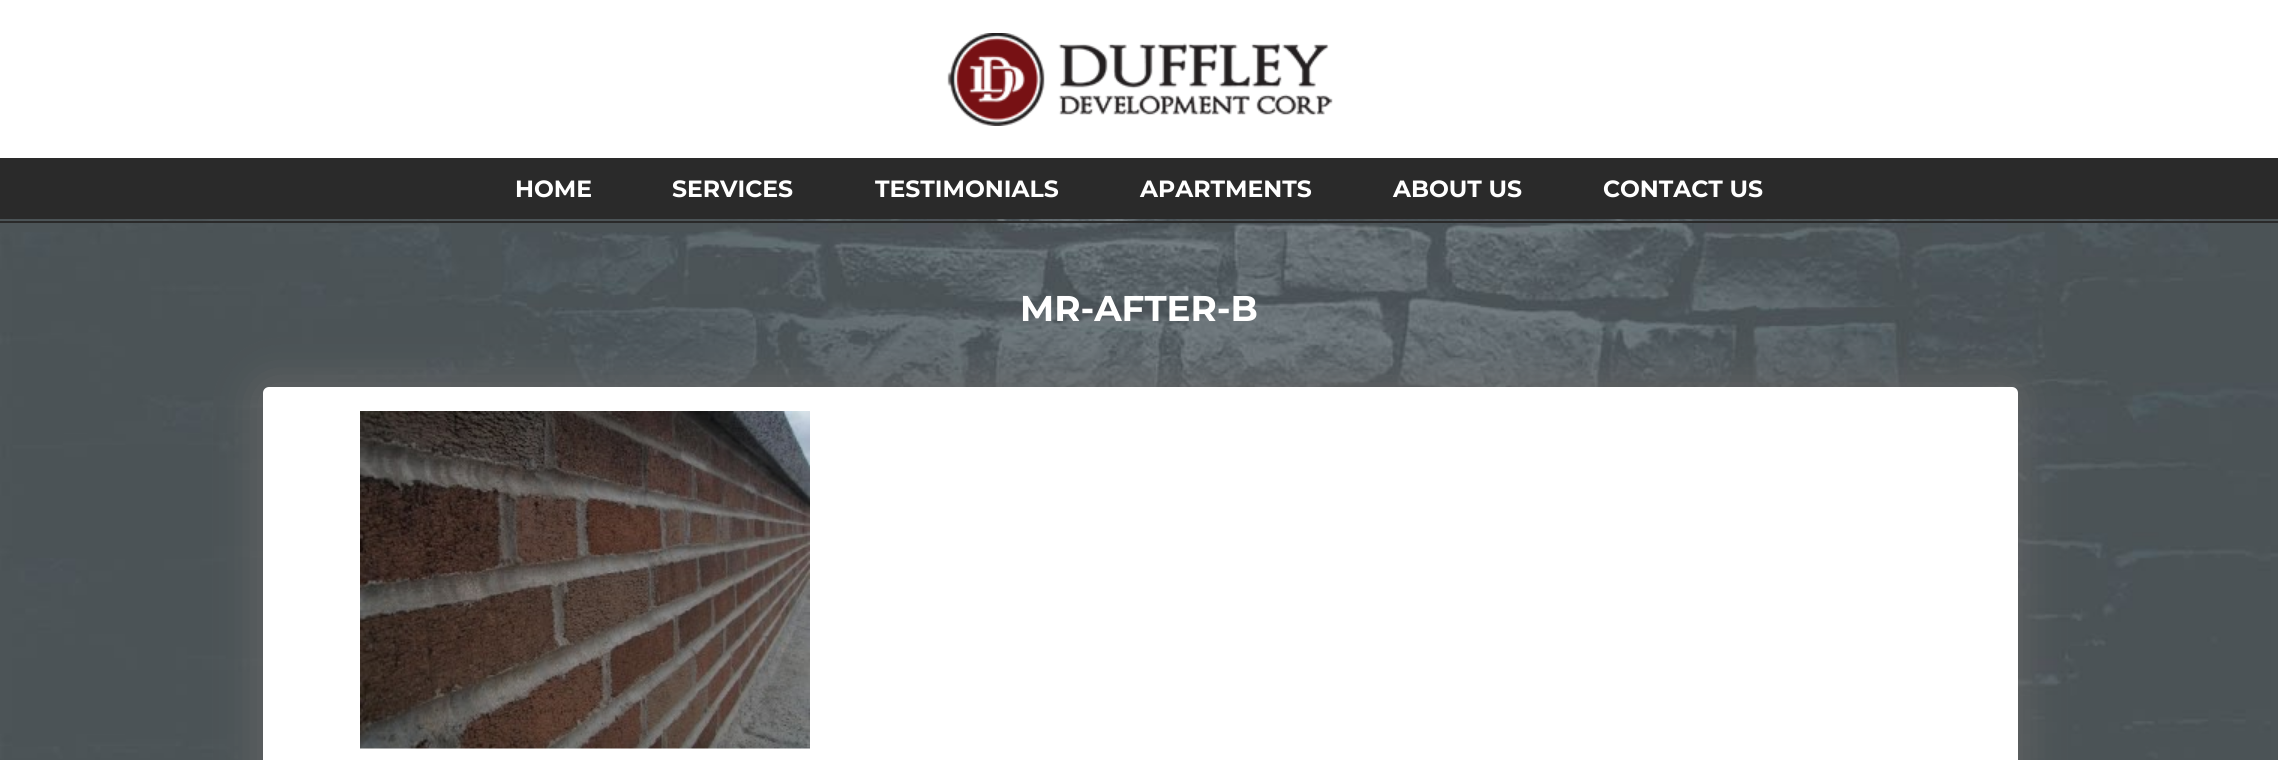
import math
import cairo



def rounded_rect(context, x, y, w, h, r):
    context.new_sub_path()
    for i, (u, v) in enumerate([(x + w - r, y + h - r), (x + r, y + h - r), (x + r, y + r), (x + w - r, y + r)]):
        context.arc(u, v, r, i * math.pi / 2, (i + 1) * math.pi / 2)
    context.close_path()


def draw_shadow(context, x, y, w, h, r, blur, alpha):
    context.push_group_with_content(cairo.Content.ALPHA)
    context.set_operator(cairo.Operator.SOURCE)
    for i in range(15, -16, -2):
        e = blur * i / 6
        if min(w, h) + 2 * e > 0:
            context.set_source_rgba(0, 0, 0, alpha * math.erfc((i - 1) / 8.5) / 2)
            rounded_rect(context, x - e, y - e, w + 2 * e, h + 2 * e, max(0, min(r + e + blur * .6, min(w, h) / 2 + e)))
            context.fill()
    context.mask(context.pop_group())


def draw_image(context, path, x, y, w, h):
    context.save()
    context.set_source_surface(cairo.ImageSurface.create_from_png(path), x, y)
    context.rectangle(x, y, w, h)
    context.fill()
    context.restore()


def draw(context):
    context.set_source_rgb(1, 1, 1)
    context.paint()
    draw_image(context, "images/1.png", 947, 33, 386, 93)
    context.set_source_rgb(42 / 255, 42 / 255, 42 / 255)
    context.rectangle(0, 158, 2278, 61)
    context.fill()
    draw_image(context, "images/2.png", 0, 219, 2278, 541)
    context.rectangle(0, 221, 2278, 2)
    context.fill()
    context.set_source_rgb(102 / 255, 102 / 255, 102 / 255)
    draw_shadow(context, 261, 386, 1758, 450, 8, 22.5, 1)
    context.set_source_rgb(1, 1, 1)
    rounded_rect(context, 263, 387, 1755, 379, 6)
    context.fill()
    draw_image(context, "images/3.png", 360, 411, 450, 338)
    context.select_font_face("Montserrat", cairo.FontSlant.NORMAL, cairo.FontWeight.BOLD)
    context.set_font_size(23.5)
    context.move_to(515, 197)
    context.show_text("HOME")
    context.move_to(672, 197)
    context.show_text("SERVICES")
    context.move_to(875, 197)
    context.show_text("TESTIMONIALS")
    context.move_to(1140, 197)
    context.show_text("APARTMENTS")
    context.move_to(1393, 197)
    context.show_text("ABOUT US")
    context.move_to(1603, 197)
    context.show_text("CONTACT US")
    context.set_font_size(35.75)
    context.move_to(1020, 321)
    context.show_text("MR-AFTER-B")


surface = cairo.ImageSurface(cairo.Format.RGB24, 2278, 760)
context = cairo.Context(surface)
options = cairo.FontOptions()
options.set_hint_metrics(cairo.HintMetrics.OFF)
options.set_hint_style(cairo.HintStyle.NONE)
context.set_font_options(options)
context.set_miter_limit(4)
draw(context)
surface.write_to_png("out.png")
